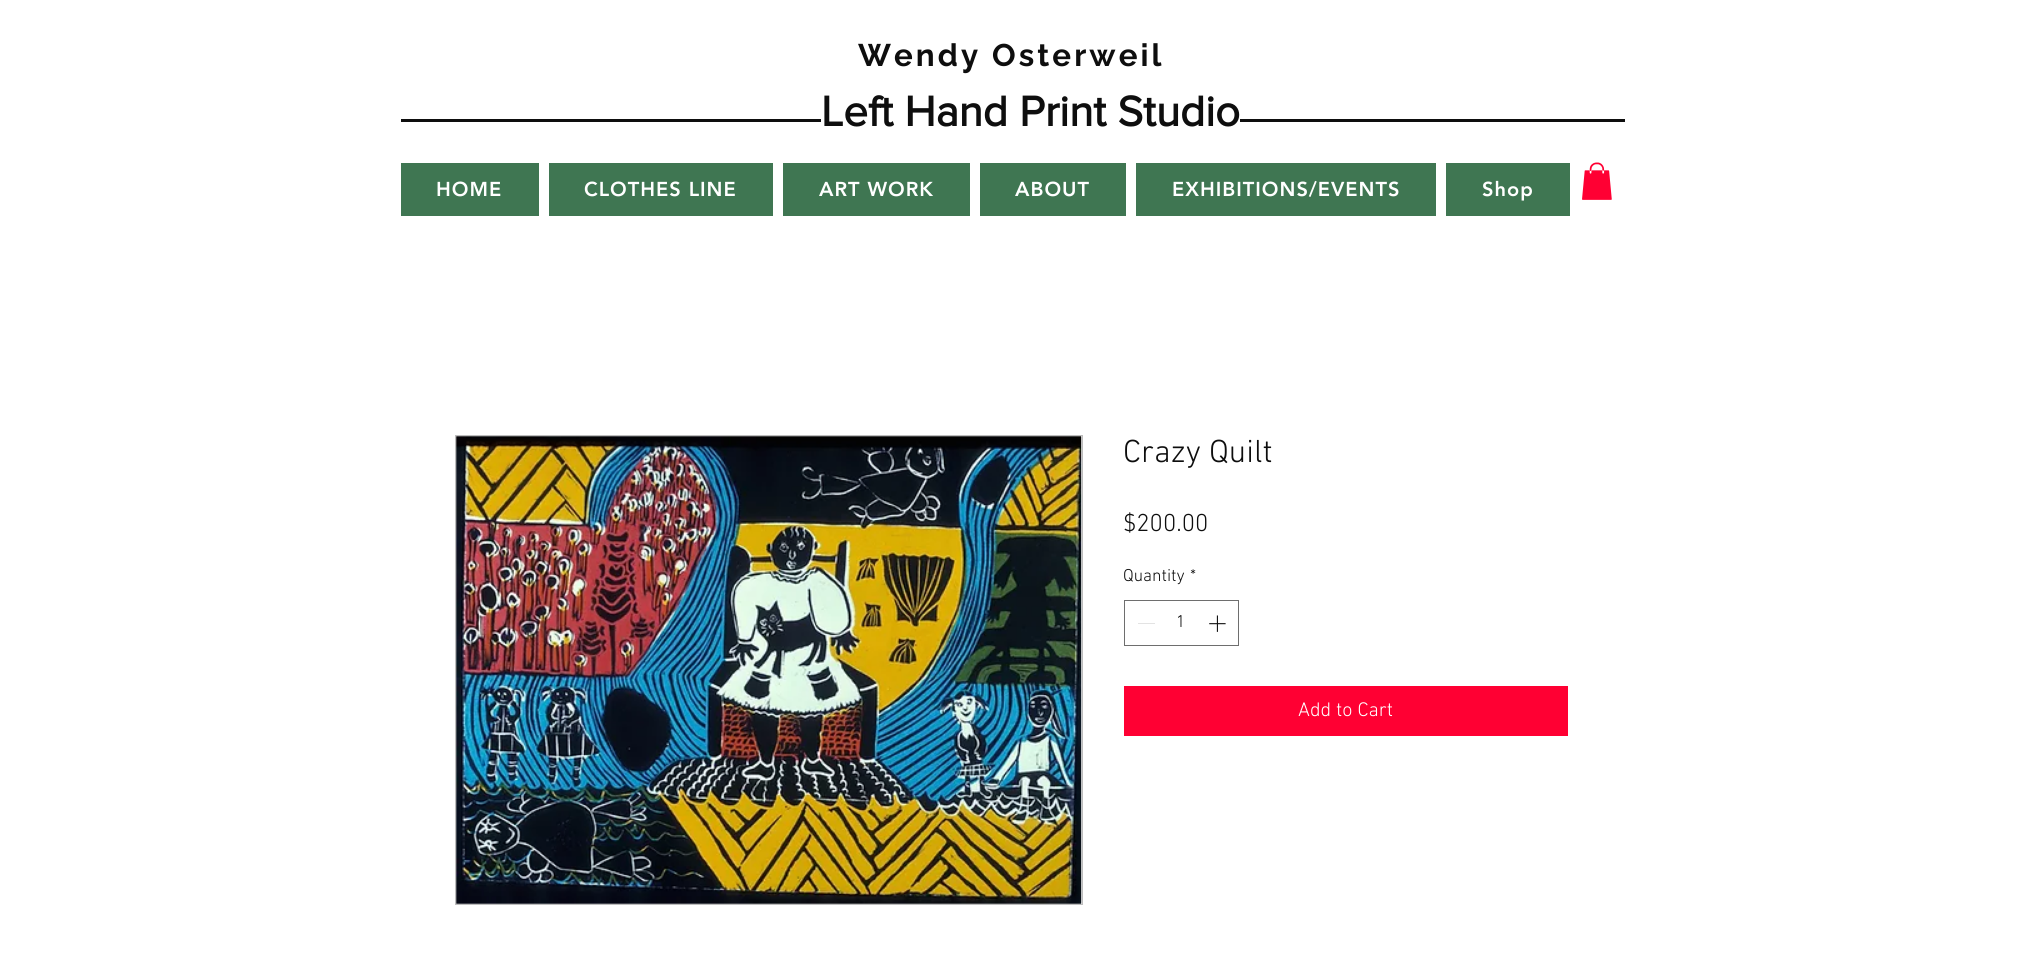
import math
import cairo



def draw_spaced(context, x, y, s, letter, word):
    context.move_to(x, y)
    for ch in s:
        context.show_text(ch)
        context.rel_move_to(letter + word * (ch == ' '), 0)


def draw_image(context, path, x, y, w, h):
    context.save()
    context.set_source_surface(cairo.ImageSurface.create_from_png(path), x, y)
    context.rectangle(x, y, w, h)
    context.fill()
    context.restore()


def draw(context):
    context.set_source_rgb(1, 1, 1)
    context.paint()
    context.set_source_rgb(14 / 255, 14 / 255, 14 / 255)
    context.rectangle(401, 119, 1224, 3)
    context.fill()
    context.set_source_rgb(1, 1, 1)
    context.rectangle(821, 119, 419, 3)
    context.fill()
    context.set_source_rgb(63 / 255, 118 / 255, 82 / 255)
    context.rectangle(401, 163, 138, 53)
    context.fill()
    context.rectangle(549, 163, 224, 53)
    context.fill()
    context.rectangle(783, 163, 187, 53)
    context.fill()
    context.rectangle(980, 163, 146, 53)
    context.fill()
    context.rectangle(1136, 163, 300, 53)
    context.fill()
    context.rectangle(1446, 163, 124, 53)
    context.fill()
    draw_image(context, "images/1.png", 1582, 162, 30, 38)
    context.rectangle(455.5, 435.5, 627, 469)
    context.set_source_rgb(189 / 255, 189 / 255, 189 / 255)
    context.set_line_width(1)
    context.stroke()
    draw_image(context, "images/2.png", 456, 436, 626, 468)
    context.rectangle(1124.5, 600.5, 114, 45)
    context.set_source_rgb(110 / 255, 110 / 255, 110 / 255)
    context.stroke()
    context.set_source_rgb(227 / 255, 227 / 255, 227 / 255)
    context.rectangle(1138, 623, 17, 1)
    context.fill()
    draw_image(context, "images/3.png", 1209, 615, 17, 17)
    context.set_source_rgb(1, 0, 51 / 255)
    context.rectangle(1124, 686, 444, 50)
    context.fill()
    context.select_font_face("Raleway", cairo.FontSlant.NORMAL, cairo.FontWeight.BOLD)
    context.set_font_size(31.25)
    context.set_source_rgb(14 / 255, 14 / 255, 14 / 255)
    draw_spaced(context, 858, 66, "Wendy Osterweil", 3.1, 0)
    context.select_font_face("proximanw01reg", cairo.FontSlant.NORMAL, cairo.FontWeight.BOLD)
    context.set_font_size(43.75)
    context.move_to(821, 126)
    context.show_text("Left Hand Print Studio")
    context.select_font_face("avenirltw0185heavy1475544 Black")
    context.set_font_size(20)
    context.set_source_rgb(1, 1, 1)
    draw_spaced(context, 436, 196, "HOME", 1, 0)
    draw_spaced(context, 584, 196, "CLOTHES LINE", 1, 0)
    draw_spaced(context, 819, 196, "ART WORK", 1, 0)
    draw_spaced(context, 1015, 196, "ABOUT", 1, 0)
    draw_spaced(context, 1172, 196, "EXHIBITIONS/EVENTS", 1, 0)
    draw_spaced(context, 1482, 196, "Shop", 1, 0)
    context.select_font_face("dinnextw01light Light")
    context.set_font_size(32.5)
    context.set_source_rgb(14 / 255, 14 / 255, 14 / 255)
    context.move_to(1123, 462)
    context.show_text("Crazy Quilt")
    context.set_font_size(25)
    context.move_to(1123, 531)
    context.show_text("$200.00")
    context.set_font_size(17.5)
    context.move_to(1123, 581)
    context.show_text("Quantity")
    context.move_to(1190, 581)
    context.show_text("*")
    context.move_to(1176, 627)
    context.show_text("1")
    context.set_font_size(20)
    context.set_source_rgb(1, 1, 1)
    context.move_to(1298, 716)
    context.show_text("Add to Cart")


surface = cairo.ImageSurface(cairo.Format.RGB24, 2021, 959)
context = cairo.Context(surface)
options = cairo.FontOptions()
options.set_hint_metrics(cairo.HintMetrics.OFF)
options.set_hint_style(cairo.HintStyle.NONE)
context.set_font_options(options)
context.set_miter_limit(4)
draw(context)
surface.write_to_png("out.png")
